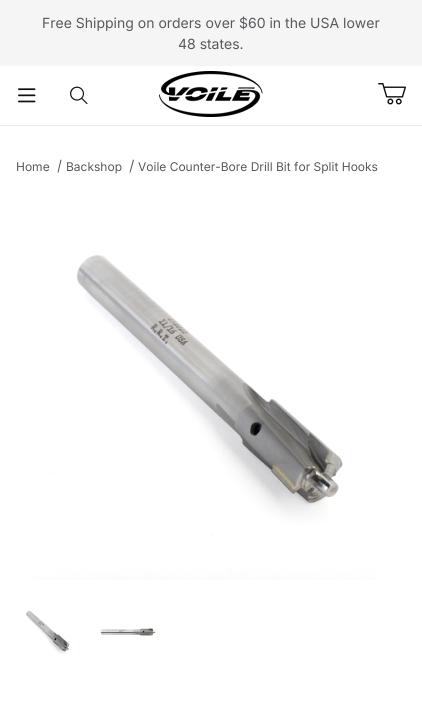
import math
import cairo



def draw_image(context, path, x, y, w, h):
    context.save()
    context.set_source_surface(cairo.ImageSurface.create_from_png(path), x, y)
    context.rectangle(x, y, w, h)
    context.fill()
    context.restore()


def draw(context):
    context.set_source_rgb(1, 1, 1)
    context.paint()
    context.set_source_rgb(234 / 255, 234 / 255, 234 / 255)
    context.rectangle(0, 125, 422, 1)
    context.fill()
    context.set_source_rgb(245 / 255, 245 / 255, 245 / 255)
    context.rectangle(0, 0, 422, 66)
    context.fill()
    draw_image(context, "images/1.png", 18, 88, 18, 15)
    draw_image(context, "images/2.png", 70, 86, 18, 18)
    draw_image(context, "images/3.png", 159, 71, 104, 46)
    draw_image(context, "images/4.png", 378, 83, 28, 22)
    context.set_source_rgb(87 / 255, 90 / 255, 93 / 255)
    context.new_path()
    context.move_to(60.5, 159.5)
    context.line_to(61.5, 160)
    context.line_to(58.5, 172.5)
    context.line_to(57.5, 172.5)
    context.close_path()
    context.fill()
    context.new_path()
    context.move_to(133, 159.5)
    context.line_to(134, 160)
    context.line_to(130.5, 172.5)
    context.line_to(129.5, 172.5)
    context.close_path()
    context.fill()
    draw_image(context, "images/5.png", 28, 255, 349, 325)
    draw_image(context, "images/6.png", 26, 610, 44, 44)
    draw_image(context, "images/7.png", 100, 628, 56, 8)
    context.select_font_face("Inter")
    context.set_font_size(14)
    context.move_to(42, 28)
    context.show_text("Free Shipping on orders over $60 in the USA lower")
    context.move_to(178, 49)
    context.show_text("48 states.")
    context.set_font_size(12)
    context.move_to(16, 171)
    context.show_text("Home")
    context.move_to(66, 171)
    context.show_text("Backshop")
    context.move_to(138, 171)
    context.show_text("Voile Counter-Bore Drill Bit for Split Hooks")


surface = cairo.ImageSurface(cairo.Format.RGB24, 422, 703)
context = cairo.Context(surface)
options = cairo.FontOptions()
options.set_hint_metrics(cairo.HintMetrics.OFF)
options.set_hint_style(cairo.HintStyle.NONE)
context.set_font_options(options)
context.set_miter_limit(4)
draw(context)
surface.write_to_png("out.png")
